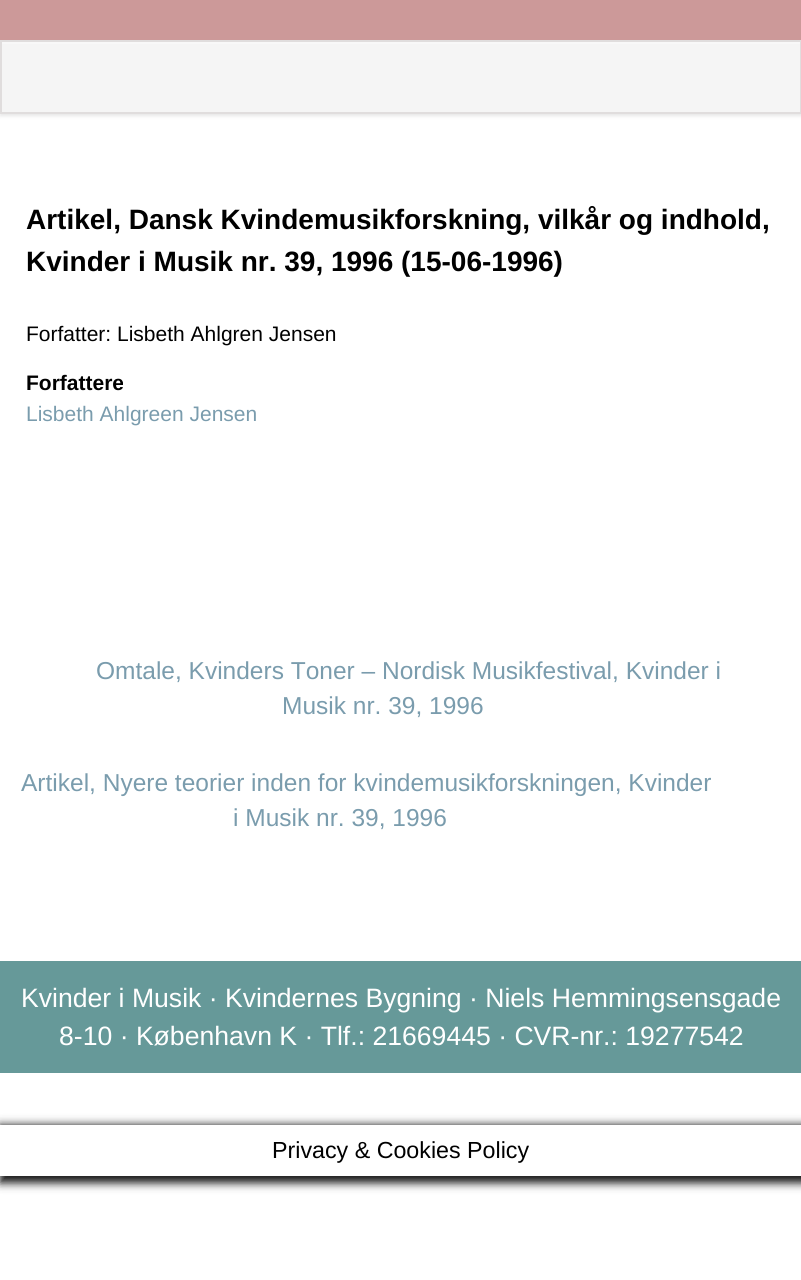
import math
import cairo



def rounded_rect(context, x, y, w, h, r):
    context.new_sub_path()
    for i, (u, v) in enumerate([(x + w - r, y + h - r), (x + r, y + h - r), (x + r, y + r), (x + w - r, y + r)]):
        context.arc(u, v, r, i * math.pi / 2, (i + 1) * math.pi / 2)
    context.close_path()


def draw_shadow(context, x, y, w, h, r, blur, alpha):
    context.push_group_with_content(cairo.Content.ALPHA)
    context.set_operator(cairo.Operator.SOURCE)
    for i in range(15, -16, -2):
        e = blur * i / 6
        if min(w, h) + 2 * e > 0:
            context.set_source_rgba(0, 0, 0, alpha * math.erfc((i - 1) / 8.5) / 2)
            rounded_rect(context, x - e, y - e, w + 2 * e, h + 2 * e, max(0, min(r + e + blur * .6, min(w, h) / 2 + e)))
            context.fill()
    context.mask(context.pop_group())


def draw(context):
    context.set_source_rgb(1, 1, 1)
    context.paint()
    context.set_source_rgb(0, 0, 0)
    draw_shadow(context, 0, 42, 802, 74, 0, 2, 0.1)
    context.set_source_rgb(204 / 255, 153 / 255, 153 / 255)
    context.rectangle(0, 0, 801, 40)
    context.fill()
    context.set_source_rgb(245 / 255, 245 / 255, 245 / 255)
    context.rectangle(2, 44, 798, 68)
    context.fill()
    context.set_source_rgb(248 / 255, 248 / 255, 248 / 255)
    context.rectangle(2, 42, 798, 2)
    context.fill()
    context.rectangle(1, 41, 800, 72)
    context.set_source_rgb(224 / 255, 221 / 255, 221 / 255)
    context.stroke()
    context.set_source_rgb(102 / 255, 153 / 255, 153 / 255)
    context.rectangle(0, 961, 801, 112)
    context.fill()
    context.save()
    context.set_fill_rule(cairo.FillRule.EVEN_ODD)
    context.new_path()
    context.move_to(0, 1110)
    context.line_to(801, 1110)
    context.line_to(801, 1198)
    context.line_to(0, 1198)
    context.close_path()
    context.move_to(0, 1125)
    context.line_to(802, 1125)
    context.line_to(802, 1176)
    context.line_to(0, 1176)
    context.close_path()
    context.clip()
    context.set_source_rgb(22 / 255, 22 / 255, 22 / 255)
    draw_shadow(context, 0, 1125, 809, 58, 0, 4.5, 1)
    context.restore()
    context.select_font_face("Liberation Sans", cairo.FontSlant.NORMAL, cairo.FontWeight.BOLD)
    context.set_font_size(28)
    context.set_source_rgb(0, 0, 0)
    context.move_to(26, 229)
    context.show_text("Artikel, Dansk Kvindemusikforskning, vilkår og indhold,")
    context.move_to(26, 271)
    context.show_text("Kvinder i Musik nr. 39, 1996 (15-06-1996)")
    context.select_font_face("Liberation Sans")
    context.set_font_size(21)
    context.move_to(26, 341)
    context.show_text("Forfatter: Lisbeth Ahlgren Jensen")
    context.select_font_face("Liberation Sans", cairo.FontSlant.NORMAL, cairo.FontWeight.BOLD)
    context.move_to(26, 390)
    context.show_text("Forfattere")
    context.select_font_face("Liberation Sans")
    context.set_source_rgb(122 / 255, 156 / 255, 173 / 255)
    context.move_to(26, 421)
    context.show_text("Lisbeth Ahlgreen Jensen")
    context.set_font_size(24.5)
    context.move_to(96, 679)
    context.show_text("Omtale, Kvinders Toner – Nordisk Musikfestival, Kvinder i")
    context.move_to(282, 714)
    context.show_text("Musik nr. 39, 1996")
    context.move_to(21, 791)
    context.show_text("Artikel, Nyere teorier inden for kvindemusikforskningen, Kvinder")
    context.move_to(233, 826)
    context.show_text("i Musik nr. 39, 1996")
    context.set_font_size(26.6)
    context.set_source_rgb(1, 1, 1)
    context.move_to(21, 1007)
    context.show_text("Kvinder i Musik · Kvindernes Bygning")
    context.move_to(469, 1007)
    context.show_text("· Niels Hemmingsensgade")
    context.move_to(59, 1045)
    context.show_text("8-10 · København K · Tlf.: 21669445 · CVR-nr.: 19277542")
    context.set_font_size(23.25)
    context.set_source_rgb(0, 0, 0)
    context.move_to(272, 1158)
    context.show_text("Privacy & Cookies Policy")


surface = cairo.ImageSurface(cairo.Format.RGB24, 801, 1280)
context = cairo.Context(surface)
options = cairo.FontOptions()
options.set_hint_metrics(cairo.HintMetrics.OFF)
options.set_hint_style(cairo.HintStyle.NONE)
context.set_font_options(options)
context.set_miter_limit(4)
draw(context)
surface.write_to_png("out.png")
